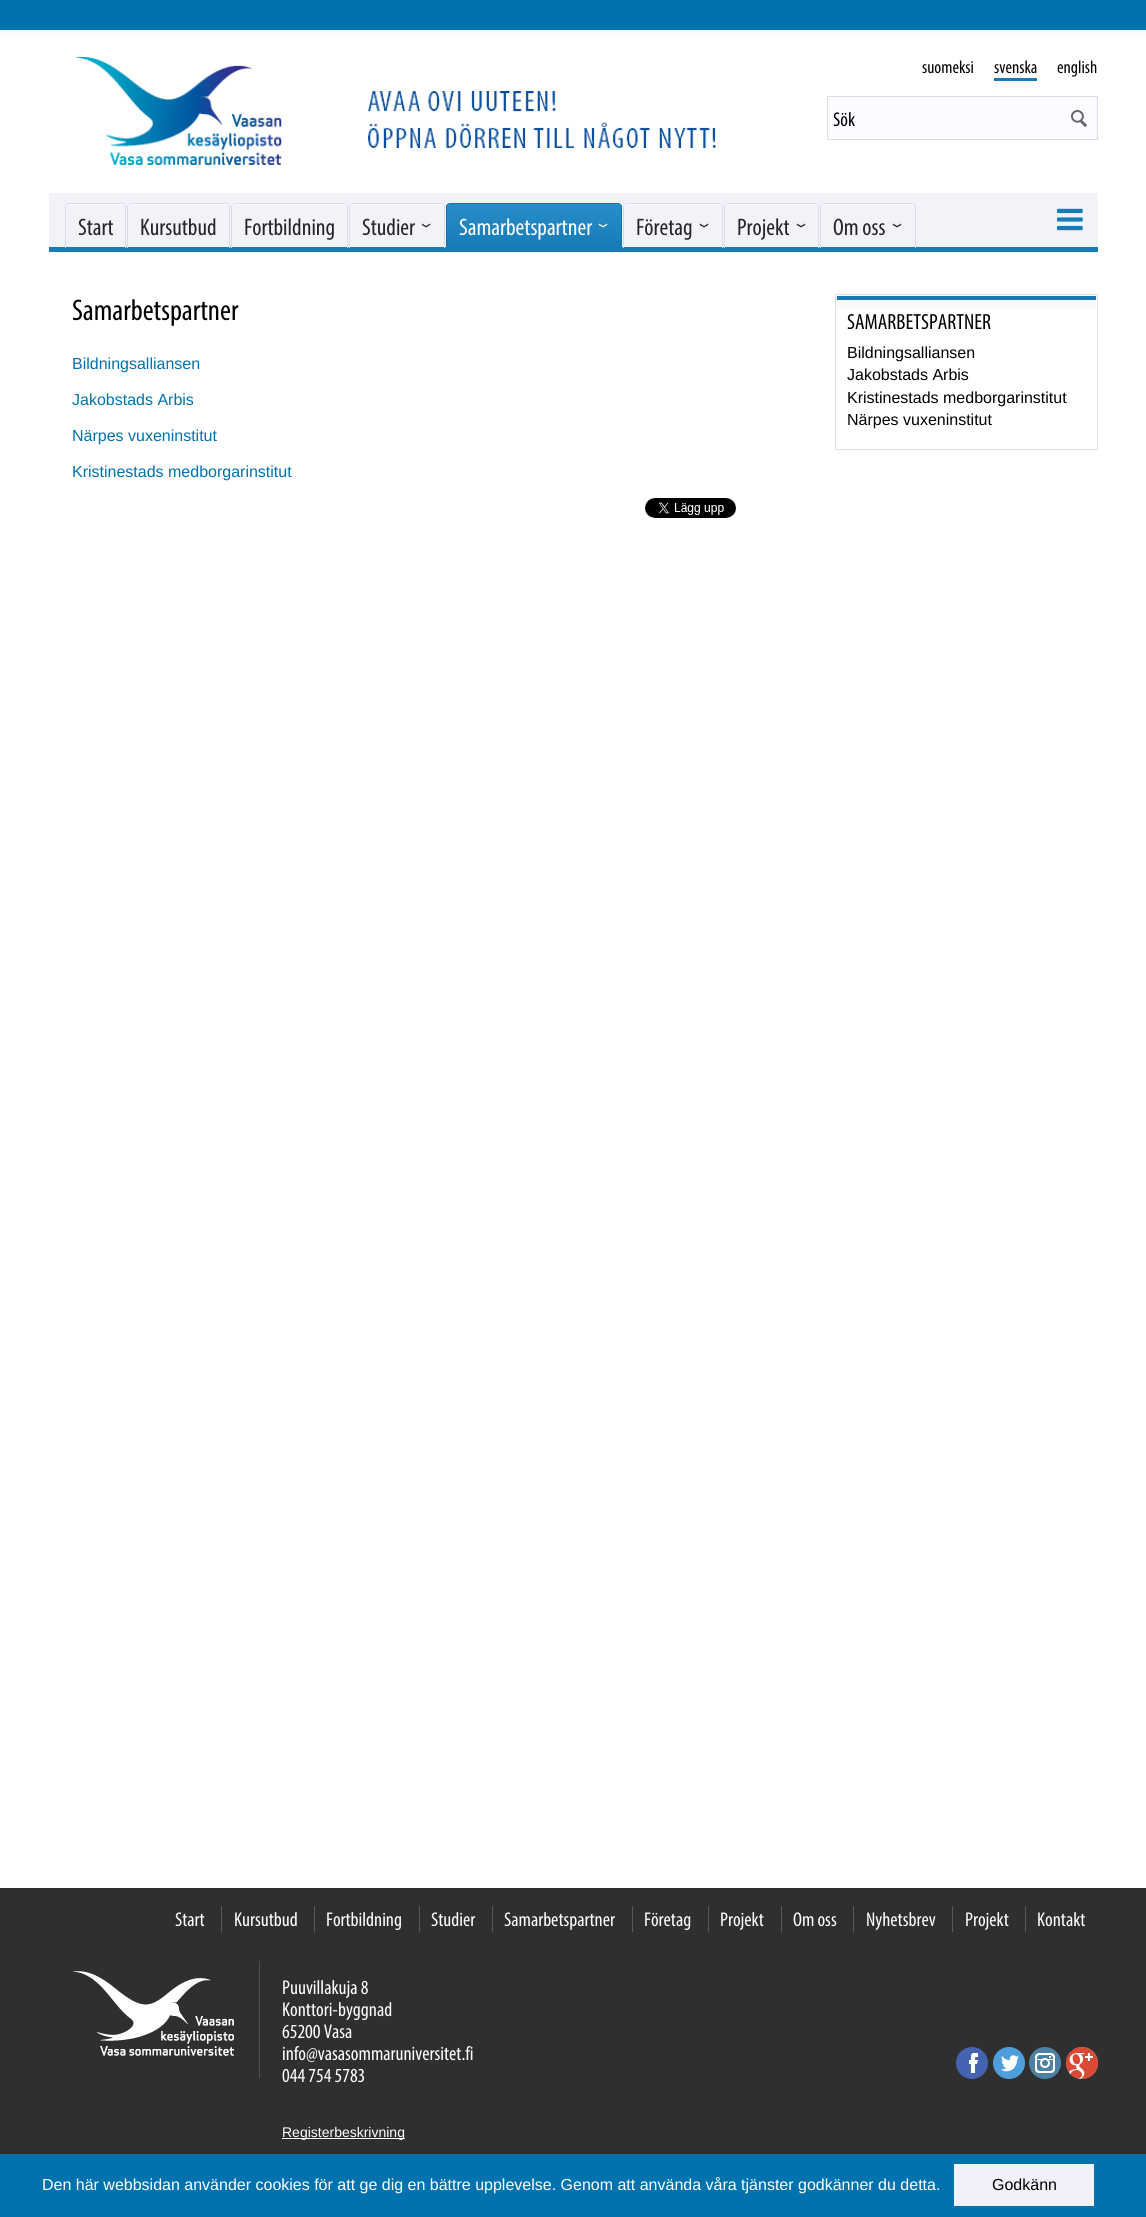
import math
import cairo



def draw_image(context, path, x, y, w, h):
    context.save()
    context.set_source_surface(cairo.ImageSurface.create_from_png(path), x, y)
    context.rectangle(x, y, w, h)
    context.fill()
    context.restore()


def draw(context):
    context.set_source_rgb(1, 1, 1)
    context.paint()
    context.set_source_rgb(0, 114 / 255, 173 / 255)
    context.rectangle(0, 0, 1146, 30)
    context.fill()
    draw_image(context, "images/1.png", 0, 30, 1146, 8)
    draw_image(context, "images/2.png", 76, 56, 206, 109)
    draw_image(context, "images/3.png", 368, 91, 348, 57)
    context.set_source_rgb(23 / 255, 123 / 255, 184 / 255)
    context.rectangle(994, 78, 43, 3)
    context.fill()
    context.set_source_rgb(252 / 255, 251 / 255, 1)
    context.rectangle(827.5, 96.5, 270, 43)
    context.fill_preserve()
    context.set_source_rgb(219 / 255, 219 / 255, 231 / 255)
    context.set_line_width(1)
    context.stroke()
    draw_image(context, "images/4.png", 1071, 110, 16, 17)
    context.set_source_rgb(242 / 255, 242 / 255, 249 / 255)
    context.rectangle(49, 193, 1049, 54)
    context.fill()
    context.set_source_rgb(23 / 255, 123 / 255, 184 / 255)
    context.rectangle(49, 247, 1049, 5)
    context.fill()
    context.set_source_rgb(1, 1, 1)
    context.new_path()
    context.move_to(69, 205)
    context.line_to(122, 205)
    context.curve_to(124, 205, 125, 206, 125, 208)
    context.curve_to(125, 202, 118, 204, 113, 204)
    context.line_to(78, 204)
    context.curve_to(73, 204, 66, 202, 66, 208)
    context.curve_to(66, 206, 67, 205, 69, 205)
    context.close_path()
    context.fill()
    context.set_source_rgb(218 / 255, 218 / 255, 233 / 255)
    context.set_fill_rule(cairo.FillRule.EVEN_ODD)
    context.new_path()
    context.move_to(69, 203)
    context.line_to(122, 203)
    context.curve_to(124, 203, 126, 205, 126, 207)
    context.line_to(126, 248)
    context.line_to(65, 248)
    context.line_to(65, 207)
    context.curve_to(65, 205, 67, 203, 69, 203)
    context.close_path()
    context.move_to(69, 204)
    context.line_to(122, 204)
    context.curve_to(124, 204, 125, 205, 125, 207)
    context.line_to(125, 248)
    context.line_to(66, 248)
    context.line_to(66, 207)
    context.curve_to(66, 205, 67, 204, 69, 204)
    context.close_path()
    context.fill()
    context.set_source_rgb(1, 1, 1)
    context.set_fill_rule(cairo.FillRule.WINDING)
    context.new_path()
    context.move_to(131, 205)
    context.line_to(226, 205)
    context.curve_to(228, 205, 229, 206, 229, 208)
    context.curve_to(229, 200, 213, 204, 210, 204)
    context.line_to(147, 204)
    context.curve_to(144, 204, 128, 200, 128, 208)
    context.curve_to(128, 206, 129, 205, 131, 205)
    context.close_path()
    context.fill()
    context.set_source_rgb(218 / 255, 218 / 255, 233 / 255)
    context.set_fill_rule(cairo.FillRule.EVEN_ODD)
    context.new_path()
    context.move_to(131, 203)
    context.line_to(226, 203)
    context.curve_to(228, 203, 230, 205, 230, 207)
    context.line_to(230, 248)
    context.line_to(127, 248)
    context.line_to(127, 207)
    context.curve_to(127, 205, 129, 203, 131, 203)
    context.close_path()
    context.move_to(131, 204)
    context.line_to(226, 204)
    context.curve_to(228, 204, 229, 205, 229, 207)
    context.line_to(229, 248)
    context.line_to(128, 248)
    context.line_to(128, 207)
    context.curve_to(128, 205, 129, 204, 131, 204)
    context.close_path()
    context.fill()
    context.set_source_rgb(1, 1, 1)
    context.set_fill_rule(cairo.FillRule.WINDING)
    context.new_path()
    context.move_to(235, 205)
    context.line_to(344, 205)
    context.curve_to(346, 205, 347, 206, 347, 208)
    context.curve_to(347, 206, 346, 204, 344, 204)
    context.line_to(253, 204)
    context.curve_to(252, 204, 232, 199, 232, 208)
    context.curve_to(232, 206, 233, 205, 235, 205)
    context.close_path()
    context.fill()
    context.set_source_rgb(218 / 255, 218 / 255, 233 / 255)
    context.set_fill_rule(cairo.FillRule.EVEN_ODD)
    context.new_path()
    context.move_to(235, 203)
    context.line_to(344, 203)
    context.curve_to(346, 203, 348, 205, 348, 207)
    context.line_to(348, 248)
    context.line_to(231, 248)
    context.line_to(231, 207)
    context.curve_to(231, 205, 233, 203, 235, 203)
    context.close_path()
    context.move_to(235, 204)
    context.line_to(344, 204)
    context.curve_to(346, 204, 347, 205, 347, 207)
    context.line_to(347, 248)
    context.line_to(232, 248)
    context.line_to(232, 207)
    context.curve_to(232, 205, 233, 204, 235, 204)
    context.close_path()
    context.fill()
    context.set_source_rgb(1, 1, 1)
    context.set_fill_rule(cairo.FillRule.WINDING)
    context.new_path()
    context.move_to(353, 205)
    context.line_to(441, 205)
    context.curve_to(443, 205, 444, 206, 444, 208)
    context.curve_to(444, 200, 430, 204, 426, 204)
    context.line_to(368, 204)
    context.curve_to(364, 204, 350, 200, 350, 208)
    context.curve_to(350, 206, 351, 205, 353, 205)
    context.close_path()
    context.fill()
    context.set_source_rgb(218 / 255, 218 / 255, 233 / 255)
    context.set_fill_rule(cairo.FillRule.EVEN_ODD)
    context.new_path()
    context.move_to(353, 203)
    context.line_to(441, 203)
    context.curve_to(443, 203, 445, 205, 445, 207)
    context.line_to(445, 248)
    context.line_to(349, 248)
    context.line_to(349, 207)
    context.curve_to(349, 205, 351, 203, 353, 203)
    context.close_path()
    context.move_to(353, 204)
    context.line_to(441, 204)
    context.curve_to(443, 204, 444, 205, 444, 207)
    context.line_to(444, 248)
    context.line_to(350, 248)
    context.line_to(350, 207)
    context.curve_to(350, 205, 351, 204, 353, 204)
    context.close_path()
    context.fill()
    context.save()
    context.set_fill_rule(cairo.FillRule.WINDING)
    context.new_path()
    context.move_to(450, 203)
    context.line_to(618, 203)
    context.curve_to(620, 203, 622, 205, 622, 207)
    context.line_to(622, 248)
    context.line_to(446, 248)
    context.line_to(446, 207)
    context.curve_to(446, 205, 448, 203, 450, 203)
    context.close_path()
    context.clip()
    gradient = cairo.LinearGradient(534, 204, 534, 248)
    gradient.add_color_stop_rgba(0, 41 / 255, 141 / 255, 202 / 255, 1)
    gradient.add_color_stop_rgba(1, 23 / 255, 123 / 255, 184 / 255, 1)
    context.set_source(gradient)
    context.rectangle(446, 204, 176, 43)
    context.fill()
    context.restore()
    context.set_source_rgb(16 / 255, 116 / 255, 184 / 255)
    context.new_path()
    context.move_to(450, 203)
    context.line_to(618, 203)
    context.curve_to(620, 203, 622, 205, 622, 207)
    context.line_to(622, 248)
    context.line_to(446, 248)
    context.line_to(446, 207)
    context.curve_to(446, 205, 448, 203, 450, 203)
    context.close_path()
    context.move_to(450, 204)
    context.line_to(618, 204)
    context.curve_to(620, 204, 621, 205, 621, 207)
    context.line_to(621, 248)
    context.line_to(447, 248)
    context.line_to(447, 207)
    context.curve_to(447, 205, 448, 204, 450, 204)
    context.close_path()
    context.fill()
    context.set_source_rgb(1, 1, 1)
    context.set_fill_rule(cairo.FillRule.WINDING)
    context.new_path()
    context.move_to(627, 205)
    context.line_to(719, 205)
    context.curve_to(721, 205, 722, 206, 722, 208)
    context.curve_to(722, 200, 707, 204, 704, 204)
    context.line_to(642, 204)
    context.curve_to(639, 204, 624, 200, 624, 208)
    context.curve_to(624, 206, 625, 205, 627, 205)
    context.close_path()
    context.fill()
    context.set_source_rgb(218 / 255, 218 / 255, 233 / 255)
    context.set_fill_rule(cairo.FillRule.EVEN_ODD)
    context.new_path()
    context.move_to(627, 203)
    context.line_to(719, 203)
    context.curve_to(721, 203, 723, 205, 723, 207)
    context.line_to(723, 248)
    context.line_to(623, 248)
    context.line_to(623, 207)
    context.curve_to(623, 205, 625, 203, 627, 203)
    context.close_path()
    context.move_to(627, 204)
    context.line_to(719, 204)
    context.curve_to(721, 204, 722, 205, 722, 207)
    context.line_to(722, 248)
    context.line_to(624, 248)
    context.line_to(624, 207)
    context.curve_to(624, 205, 625, 204, 627, 204)
    context.close_path()
    context.fill()
    context.set_source_rgb(1, 1, 1)
    context.set_fill_rule(cairo.FillRule.WINDING)
    context.new_path()
    context.move_to(728, 205)
    context.line_to(815, 205)
    context.curve_to(817, 205, 818, 206, 818, 208)
    context.curve_to(818, 200, 804, 204, 800, 204)
    context.line_to(742, 204)
    context.curve_to(739, 204, 725, 200, 725, 208)
    context.curve_to(725, 206, 726, 205, 728, 205)
    context.close_path()
    context.fill()
    context.set_source_rgb(218 / 255, 218 / 255, 233 / 255)
    context.set_fill_rule(cairo.FillRule.EVEN_ODD)
    context.new_path()
    context.move_to(728, 203)
    context.line_to(815, 203)
    context.curve_to(817, 203, 819, 205, 819, 207)
    context.line_to(819, 248)
    context.line_to(724, 248)
    context.line_to(724, 207)
    context.curve_to(724, 205, 726, 203, 728, 203)
    context.close_path()
    context.move_to(728, 204)
    context.line_to(815, 204)
    context.curve_to(817, 204, 818, 205, 818, 207)
    context.line_to(818, 248)
    context.line_to(725, 248)
    context.line_to(725, 207)
    context.curve_to(725, 205, 726, 204, 728, 204)
    context.close_path()
    context.fill()
    context.set_source_rgb(1, 1, 1)
    context.set_fill_rule(cairo.FillRule.WINDING)
    context.new_path()
    context.move_to(824, 205)
    context.line_to(912, 205)
    context.curve_to(914, 205, 915, 206, 915, 208)
    context.curve_to(915, 200, 901, 204, 897, 204)
    context.line_to(839, 204)
    context.curve_to(835, 204, 821, 200, 821, 208)
    context.curve_to(821, 206, 822, 205, 824, 205)
    context.close_path()
    context.fill()
    context.set_source_rgb(218 / 255, 218 / 255, 233 / 255)
    context.set_fill_rule(cairo.FillRule.EVEN_ODD)
    context.new_path()
    context.move_to(824, 203)
    context.line_to(912, 203)
    context.curve_to(914, 203, 916, 205, 916, 207)
    context.line_to(916, 248)
    context.line_to(820, 248)
    context.line_to(820, 207)
    context.curve_to(820, 205, 822, 203, 824, 203)
    context.close_path()
    context.move_to(824, 204)
    context.line_to(912, 204)
    context.curve_to(914, 204, 915, 205, 915, 207)
    context.line_to(915, 248)
    context.line_to(821, 248)
    context.line_to(821, 207)
    context.curve_to(821, 205, 822, 204, 824, 204)
    context.close_path()
    context.fill()
    draw_image(context, "images/5.png", 1057, 208, 26, 23)
    draw_image(context, "images/6.png", 645, 498, 91, 20)
    context.rectangle(835.5, 294.5, 262, 155)
    context.set_source_rgb(223 / 255, 223 / 255, 223 / 255)
    context.stroke()
    context.set_source_rgb(23 / 255, 123 / 255, 184 / 255)
    context.rectangle(837, 296, 259, 4)
    context.fill()
    context.set_source_rgb(249 / 255, 249 / 255, 249 / 255)
    context.rectangle(837, 300, 259, 9)
    context.fill()
    context.set_source_rgb(47 / 255, 47 / 255, 47 / 255)
    context.rectangle(0, 1888, 1146, 266)
    context.fill()
    context.set_source_rgb(89 / 255, 89 / 255, 89 / 255)
    context.rectangle(221, 1906, 1, 26)
    context.fill()
    context.rectangle(314, 1906, 1, 26)
    context.fill()
    context.rectangle(419, 1906, 1, 26)
    context.fill()
    context.rectangle(492, 1906, 1, 26)
    context.fill()
    context.rectangle(632, 1906, 1, 26)
    context.fill()
    context.rectangle(708, 1906, 1, 26)
    context.fill()
    context.rectangle(781, 1906, 1, 26)
    context.fill()
    context.rectangle(853, 1906, 1, 26)
    context.fill()
    context.rectangle(952, 1906, 1, 26)
    context.fill()
    context.rectangle(1025, 1906, 1, 26)
    context.fill()
    context.set_source_rgb(78 / 255, 78 / 255, 78 / 255)
    context.rectangle(259, 1961, 1, 117)
    context.fill()
    draw_image(context, "images/7.png", 73, 1971, 161, 85)
    context.set_source_rgb(1, 1, 1)
    context.rectangle(282, 2138, 123, 1)
    context.fill()
    draw_image(context, "images/8.png", 956, 2047, 32, 32)
    draw_image(context, "images/9.png", 993, 2047, 32, 32)
    draw_image(context, "images/10.png", 1029, 2047, 32, 32)
    draw_image(context, "images/11.png", 1066, 2047, 32, 32)
    context.set_source_rgb(0, 114 / 255, 173 / 255)
    context.rectangle(0, 2154, 1146, 63)
    context.fill()
    context.set_source_rgb(241 / 255, 242 / 255, 249 / 255)
    context.rectangle(954, 2164, 140, 42)
    context.fill()
    context.select_font_face("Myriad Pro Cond")
    context.set_font_size(18)
    context.set_source_rgb(0, 0, 0)
    context.move_to(922, 73)
    context.show_text("suomeksi")
    context.move_to(994, 73)
    context.show_text("svenska")
    context.move_to(1057, 73)
    context.show_text("english")
    context.set_font_size(20)
    context.move_to(833, 126)
    context.show_text("Sök")
    context.set_font_size(24)
    context.set_source_rgb(37 / 255, 37 / 255, 37 / 255)
    context.move_to(78, 235)
    context.show_text("Start")
    context.move_to(140, 235)
    context.show_text("Kursutbud")
    context.move_to(244, 235)
    context.show_text("Fortbildning")
    context.move_to(362, 235)
    context.show_text("Studier")
    context.save()
    context.translate(420, 223)
    context.rotate(90 * math.pi / 180)
    context.move_to(0, 0)
    context.show_text("›")
    context.restore()
    context.set_source_rgb(1, 1, 1)
    context.move_to(459, 235)
    context.show_text("Samarbetspartner")
    context.save()
    context.translate(597, 223)
    context.rotate(90 * math.pi / 180)
    context.move_to(0, 0)
    context.show_text("›")
    context.restore()
    context.set_source_rgb(37 / 255, 37 / 255, 37 / 255)
    context.move_to(636, 235)
    context.show_text("Företag")
    context.save()
    context.translate(698, 223)
    context.rotate(90 * math.pi / 180)
    context.move_to(0, 0)
    context.show_text("›")
    context.restore()
    context.move_to(737, 235)
    context.show_text("Projekt")
    context.save()
    context.translate(795, 223)
    context.rotate(90 * math.pi / 180)
    context.move_to(0, 0)
    context.show_text("›")
    context.restore()
    context.move_to(833, 235)
    context.show_text("Om oss")
    context.save()
    context.translate(891, 223)
    context.rotate(90 * math.pi / 180)
    context.move_to(0, 0)
    context.show_text("›")
    context.restore()
    context.set_font_size(30)
    context.set_source_rgb(0, 0, 0)
    context.move_to(72, 320)
    context.show_text("Samarbetspartner")
    context.select_font_face("Liberation Sans")
    context.set_font_size(16)
    context.set_source_rgb(0, 114 / 255, 174 / 255)
    context.move_to(72, 369)
    context.show_text("Bildningsalliansen")
    context.move_to(72, 405)
    context.show_text("Jakobstads Arbis")
    context.move_to(72, 441)
    context.show_text("Närpes vuxeninstitut")
    context.move_to(72, 477)
    context.show_text("Kristinestads medborgarinstitut")
    context.select_font_face("Myriad Pro Cond")
    context.set_font_size(22)
    context.set_source_rgb(0, 0, 0)
    context.move_to(847, 329)
    context.show_text("SAMARBETSPARTNER")
    context.select_font_face("Liberation Sans")
    context.set_font_size(16)
    context.move_to(847, 358)
    context.show_text("Bildningsalliansen")
    context.move_to(847, 380)
    context.show_text("Jakobstads Arbis")
    context.move_to(847, 403)
    context.show_text("Kristinestads medborgarinstitut")
    context.move_to(847, 425)
    context.show_text("Närpes vuxeninstitut")
    context.select_font_face("Myriad Pro Cond")
    context.set_font_size(20)
    context.set_source_rgb(1, 1, 1)
    context.move_to(175, 1926)
    context.show_text("Start")
    context.move_to(234, 1926)
    context.show_text("Kursutbud")
    context.move_to(326, 1926)
    context.show_text("Fortbildning")
    context.move_to(431, 1926)
    context.show_text("Studier")
    context.move_to(504, 1926)
    context.show_text("Samarbetspartner")
    context.move_to(644, 1926)
    context.show_text("Företag")
    context.move_to(720, 1926)
    context.show_text("Projekt")
    context.move_to(793, 1926)
    context.show_text("Om oss")
    context.move_to(866, 1926)
    context.show_text("Nyhetsbrev")
    context.move_to(965, 1926)
    context.show_text("Projekt")
    context.move_to(1037, 1926)
    context.show_text("Kontakt")
    context.move_to(282, 1994)
    context.show_text("Puuvillakuja 8")
    context.move_to(282, 2016)
    context.show_text("Konttori-byggnad")
    context.move_to(282, 2038)
    context.show_text("65200 Vasa")
    context.move_to(282, 2060)
    context.show_text("info@vasasommaruniversitet.fi")
    context.move_to(282, 2082)
    context.show_text("044 754 5783")
    context.select_font_face("Liberation Sans")
    context.set_font_size(14)
    context.move_to(282, 2137)
    context.show_text("Registerbeskrivning")
    context.set_font_size(16)
    context.move_to(42, 2190)
    context.show_text("Den här webbsidan använder cookies för att ge dig en bättre upplevelse. Genom att använda våra tjänster godkänner du detta.")
    context.set_source_rgb(0, 0, 0)
    context.move_to(992, 2190)
    context.show_text("Godkänn")


surface = cairo.ImageSurface(cairo.Format.RGB24, 1146, 2217)
context = cairo.Context(surface)
options = cairo.FontOptions()
options.set_hint_metrics(cairo.HintMetrics.OFF)
options.set_hint_style(cairo.HintStyle.NONE)
context.set_font_options(options)
context.set_miter_limit(4)
draw(context)
surface.write_to_png("out.png")
